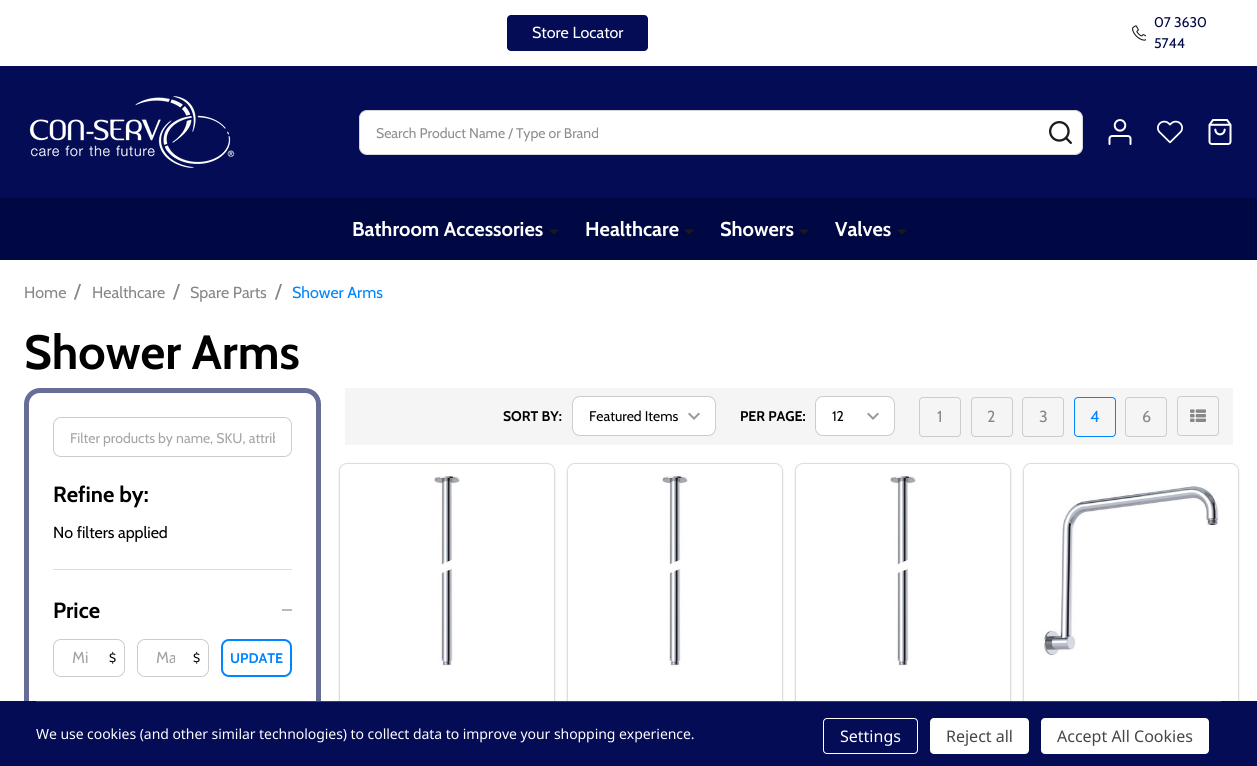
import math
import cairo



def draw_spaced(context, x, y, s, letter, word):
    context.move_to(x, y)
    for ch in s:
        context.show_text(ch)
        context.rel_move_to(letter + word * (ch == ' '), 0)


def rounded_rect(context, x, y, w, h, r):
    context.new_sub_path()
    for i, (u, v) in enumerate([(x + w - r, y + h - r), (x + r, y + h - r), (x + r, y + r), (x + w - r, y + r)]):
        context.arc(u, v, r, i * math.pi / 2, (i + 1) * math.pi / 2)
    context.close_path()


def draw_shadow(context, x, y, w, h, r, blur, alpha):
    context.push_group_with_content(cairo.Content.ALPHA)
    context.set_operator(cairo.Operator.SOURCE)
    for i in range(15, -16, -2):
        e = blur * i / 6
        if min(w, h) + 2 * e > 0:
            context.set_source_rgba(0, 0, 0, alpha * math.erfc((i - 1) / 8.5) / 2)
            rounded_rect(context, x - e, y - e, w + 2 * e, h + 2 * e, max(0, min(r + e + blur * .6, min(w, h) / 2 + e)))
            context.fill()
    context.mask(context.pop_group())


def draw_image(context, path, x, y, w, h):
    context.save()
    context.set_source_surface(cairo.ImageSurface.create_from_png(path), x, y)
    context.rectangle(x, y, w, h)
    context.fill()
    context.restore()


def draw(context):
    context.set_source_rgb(1, 1, 1)
    context.paint()
    context.set_source_rgb(3 / 255, 12 / 255, 84 / 255)
    context.rectangle(0, 66, 1257, 132)
    context.fill()
    rounded_rect(context, 507, 15, 141, 36, 4)
    context.fill()
    draw_image(context, "images/1.png", 1132, 25, 14, 16)
    draw_image(context, "images/2.png", 29, 95, 206, 74)
    context.set_source_rgb(1, 1, 1)
    rounded_rect(context, 359.5, 110.5, 723, 44, 7.5)
    context.fill_preserve()
    context.set_source_rgb(214 / 255, 214 / 255, 214 / 255)
    context.set_line_width(1)
    context.stroke()
    draw_image(context, "images/3.png", 1049, 121, 23, 23)
    draw_image(context, "images/4.png", 1108, 119, 24, 26)
    draw_image(context, "images/5.png", 1157, 120, 26, 24)
    draw_image(context, "images/6.png", 1208, 119, 24, 26)
    context.set_source_rgb(0, 8 / 255, 68 / 255)
    context.rectangle(0, 198, 1257, 62)
    context.fill()
    context.set_source_rgb(26 / 255, 26 / 255, 26 / 255)
    context.new_path()
    context.move_to(549, 229.5)
    context.line_to(554, 234.5)
    context.line_to(559, 229.5)
    context.close_path()
    context.fill()
    context.new_path()
    context.move_to(684, 229.5)
    context.line_to(689, 234.5)
    context.line_to(694, 229.5)
    context.close_path()
    context.fill()
    context.new_path()
    context.move_to(799, 229.5)
    context.line_to(804, 234.5)
    context.line_to(809, 229.5)
    context.close_path()
    context.fill()
    context.new_path()
    context.move_to(897, 229.5)
    context.line_to(902, 234.5)
    context.line_to(907, 229.5)
    context.close_path()
    context.fill()
    context.set_source_rgb(245 / 255, 245 / 255, 245 / 255)
    context.rectangle(345, 388, 888, 57)
    context.fill()
    context.set_source_rgb(1, 1, 1)
    rounded_rect(context, 572, 396, 144, 40, 8)
    context.fill()
    draw_image(context, "images/7.png", 688, 412, 12, 8)
    rounded_rect(context, 572.5, 396.5, 143, 39, 7.5)
    context.set_source_rgb(204 / 255, 204 / 255, 204 / 255)
    context.stroke()
    context.set_source_rgb(1, 1, 1)
    rounded_rect(context, 815, 396, 80, 40, 8)
    context.fill()
    draw_image(context, "images/7.png", 867, 412, 12, 8)
    rounded_rect(context, 815.5, 396.5, 79, 39, 7.5)
    context.set_source_rgb(204 / 255, 204 / 255, 204 / 255)
    context.stroke()
    rounded_rect(context, 919.5, 397.5, 41, 39, 3.5)
    context.stroke()
    rounded_rect(context, 971.5, 397.5, 41, 39, 3.5)
    context.stroke()
    rounded_rect(context, 1022.5, 397.5, 41, 39, 3.5)
    context.stroke()
    rounded_rect(context, 1074.5, 397.5, 41, 39, 3.5)
    context.set_source_rgb(0, 133 / 255, 1)
    context.stroke()
    rounded_rect(context, 1125.5, 397.5, 41, 39, 3.5)
    context.set_source_rgb(204 / 255, 204 / 255, 204 / 255)
    context.stroke()
    rounded_rect(context, 1177.5, 396.5, 41, 39, 3.5)
    context.stroke()
    draw_image(context, "images/8.png", 1190, 409, 16, 13)
    context.set_source_rgb(0, 0, 0)
    draw_shadow(context, 339, 464, 216, 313, 8, 1, 0.1)
    context.set_source_rgb(1, 1, 1)
    rounded_rect(context, 339.5, 463.5, 215, 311, 7.5)
    context.fill_preserve()
    context.set_source_rgb(221 / 255, 221 / 255, 221 / 255)
    context.stroke()
    draw_image(context, "images/9.png", 434, 473, 27, 194)
    context.set_source_rgb(0, 0, 0)
    draw_shadow(context, 567, 464, 216, 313, 8, 1, 0.1)
    context.set_source_rgb(1, 1, 1)
    rounded_rect(context, 567.5, 463.5, 215, 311, 7.5)
    context.fill_preserve()
    context.set_source_rgb(221 / 255, 221 / 255, 221 / 255)
    context.stroke()
    draw_image(context, "images/10.png", 662, 475, 27, 192)
    context.set_source_rgb(0, 0, 0)
    draw_shadow(context, 795, 464, 216, 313, 8, 1, 0.1)
    context.set_source_rgb(1, 1, 1)
    rounded_rect(context, 795.5, 463.5, 215, 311, 7.5)
    context.fill_preserve()
    context.set_source_rgb(221 / 255, 221 / 255, 221 / 255)
    context.stroke()
    draw_image(context, "images/11.png", 890, 475, 27, 192)
    context.set_source_rgb(0, 0, 0)
    draw_shadow(context, 1023, 464, 216, 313, 8, 1, 0.1)
    context.set_source_rgb(1, 1, 1)
    rounded_rect(context, 1023.5, 463.5, 215, 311, 7.5)
    context.fill_preserve()
    context.set_source_rgb(221 / 255, 221 / 255, 221 / 255)
    context.stroke()
    draw_image(context, "images/12.png", 1042, 486, 177, 172)
    rounded_rect(context, 26.5, 390.5, 292, 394, 13.5)
    context.set_source_rgb(104 / 255, 109 / 255, 152 / 255)
    context.set_line_width(5)
    context.stroke()
    rounded_rect(context, 53.5, 417.5, 238, 39, 7.5)
    context.set_source_rgb(204 / 255, 204 / 255, 204 / 255)
    context.set_line_width(1)
    context.stroke()
    context.set_source_rgb(1, 1, 1)
    rounded_rect(context, 54, 418, 237, 38, 8)
    context.fill()
    context.set_source_rgb(221 / 255, 221 / 255, 221 / 255)
    context.rectangle(53, 569, 239, 1)
    context.fill()
    context.set_source_rgb(186 / 255, 186 / 255, 186 / 255)
    context.new_path()
    context.move_to(282, 611)
    context.line_to(282, 609)
    context.line_to(292, 609)
    context.line_to(292, 611)
    context.fill()
    rounded_rect(context, 53.5, 639.5, 71, 37, 7.5)
    context.set_source_rgb(204 / 255, 204 / 255, 204 / 255)
    context.stroke()
    context.set_source_rgb(1, 1, 1)
    rounded_rect(context, 54, 640, 70, 36, 8)
    context.fill()
    rounded_rect(context, 137.5, 639.5, 71, 37, 7.5)
    context.set_source_rgb(204 / 255, 204 / 255, 204 / 255)
    context.stroke()
    context.set_source_rgb(1, 1, 1)
    rounded_rect(context, 138, 640, 70, 36, 8)
    context.fill()
    rounded_rect(context, 222, 640, 69, 36, 7)
    context.set_source_rgb(0, 133 / 255, 1)
    context.set_line_width(2)
    context.stroke()
    context.set_source_rgb(3 / 255, 12 / 255, 84 / 255)
    context.rectangle(0, 701, 1257, 65)
    context.fill()
    context.set_source_rgb(53 / 255, 61 / 255, 118 / 255)
    context.rectangle(36, 701, 1185, 1)
    context.fill()
    rounded_rect(context, 823.5, 718.5, 94, 35, 3.5)
    context.set_source_rgb(1, 1, 1)
    context.set_line_width(1)
    context.stroke()
    rounded_rect(context, 930, 718, 99, 36, 4)
    context.fill()
    rounded_rect(context, 1041, 718, 168, 36, 4)
    context.fill()
    context.select_font_face("Cabin")
    context.set_font_size(16)
    context.move_to(532, 38)
    context.show_text("Store Locator")
    context.set_font_size(14)
    context.set_source_rgb(0, 8 / 255, 68 / 255)
    context.move_to(1154, 27)
    context.show_text("07 3630")
    context.move_to(1154, 48)
    context.show_text("5744")
    context.set_source_rgb(142 / 255, 142 / 255, 142 / 255)
    context.move_to(376, 138)
    context.show_text("Search Product Name / Type or Brand")
    context.select_font_face("Cabin", cairo.FontSlant.NORMAL, cairo.FontWeight.BOLD)
    context.set_font_size(20)
    context.set_source_rgb(1, 1, 1)
    context.move_to(352, 236)
    context.show_text("Bathroom Accessories")
    context.move_to(585, 236)
    context.show_text("Healthcare")
    context.move_to(720, 236)
    context.show_text("Showers")
    context.move_to(835, 236)
    context.show_text("Valves")
    context.select_font_face("Cabin")
    context.set_font_size(16)
    context.set_source_rgb(135 / 255, 135 / 255, 135 / 255)
    context.move_to(24, 298)
    context.show_text("Home")
    context.set_font_size(20)
    context.move_to(74, 298)
    context.show_text("/")
    context.set_font_size(16)
    context.move_to(92, 298)
    context.show_text("Healthcare")
    context.set_font_size(20)
    context.move_to(173, 298)
    context.show_text("/")
    context.set_font_size(16)
    context.move_to(190, 298)
    context.show_text("Spare Parts")
    context.set_font_size(20)
    context.move_to(275, 298)
    context.show_text("/")
    context.set_font_size(16)
    context.set_source_rgb(0, 133 / 255, 1)
    context.move_to(292, 298)
    context.show_text("Shower Arms")
    context.select_font_face("Cabin", cairo.FontSlant.NORMAL, cairo.FontWeight.BOLD)
    context.set_font_size(48)
    context.set_source_rgb(0, 0, 0)
    context.move_to(24, 369)
    context.show_text("Shower Arms")
    context.set_font_size(14)
    context.move_to(503, 421)
    context.show_text("SORT BY:")
    context.select_font_face("Cabin")
    context.move_to(589, 421)
    context.show_text("Featured Items")
    context.select_font_face("Cabin", cairo.FontSlant.NORMAL, cairo.FontWeight.BOLD)
    context.move_to(740, 421)
    context.show_text("PER PAGE:")
    context.select_font_face("Cabin")
    context.move_to(832, 421)
    context.show_text("12")
    context.set_font_size(16)
    context.set_source_rgb(135 / 255, 135 / 255, 135 / 255)
    context.move_to(937, 422)
    context.show_text("1")
    context.move_to(987, 422)
    context.show_text("2")
    context.move_to(1039, 422)
    context.show_text("3")
    context.set_source_rgb(0, 133 / 255, 1)
    context.move_to(1090, 422)
    context.show_text("4")
    context.set_source_rgb(135 / 255, 135 / 255, 135 / 255)
    context.move_to(1142, 422)
    context.show_text("6")
    context.save()
    context.rectangle(70, 429, 205, 18)
    context.clip()
    context.set_font_size(14)
    context.set_source_rgb(165 / 255, 165 / 255, 165 / 255)
    context.move_to(70, 443)
    context.show_text("Filter products by name, SKU, attrib")
    context.restore()
    context.select_font_face("Cabin", cairo.FontSlant.NORMAL, cairo.FontWeight.BOLD)
    context.set_font_size(22)
    context.set_source_rgb(0, 0, 0)
    context.move_to(53, 502)
    context.show_text("Refine by:")
    context.select_font_face("Cabin")
    context.set_font_size(16)
    context.move_to(53, 538)
    context.show_text("No filters applied")
    context.select_font_face("Cabin", cairo.FontSlant.NORMAL, cairo.FontWeight.BOLD)
    context.set_font_size(22)
    context.move_to(53, 618)
    context.show_text("Price")
    context.select_font_face("Cabin")
    context.set_font_size(16)
    context.set_source_rgb(165 / 255, 165 / 255, 165 / 255)
    context.move_to(72, 663)
    context.show_text("Mi")
    context.set_font_size(12)
    context.set_source_rgb(0, 0, 0)
    context.move_to(109, 662)
    context.show_text("$")
    context.save()
    context.rectangle(156, 648, 19, 19)
    context.clip()
    context.set_font_size(16)
    context.set_source_rgb(165 / 255, 165 / 255, 165 / 255)
    context.move_to(156, 663)
    context.show_text("Ma")
    context.restore()
    context.move_to(193, 662)
    context.show_text("$")
    context.select_font_face("Cabin", cairo.FontSlant.NORMAL, cairo.FontWeight.BOLD)
    context.set_font_size(14)
    context.set_source_rgb(0, 133 / 255, 1)
    context.move_to(230, 663)
    context.show_text("UPDATE")
    context.select_font_face("Noto Sans")
    context.set_source_rgb(1, 1, 1)
    draw_spaced(context, 36, 739, "We use cookies (and other similar technologies) to collect data to improve your shopping experience.", -0.05, 0)
    context.set_font_size(16)
    context.move_to(840, 742)
    context.show_text("Settings")
    context.set_source_rgb(69 / 255, 69 / 255, 69 / 255)
    context.move_to(946, 742)
    context.show_text("Reject all")
    context.move_to(1057, 742)
    context.show_text("Accept All Cookies")


surface = cairo.ImageSurface(cairo.Format.RGB24, 1257, 766)
context = cairo.Context(surface)
options = cairo.FontOptions()
options.set_hint_metrics(cairo.HintMetrics.OFF)
options.set_hint_style(cairo.HintStyle.NONE)
context.set_font_options(options)
context.set_miter_limit(4)
draw(context)
surface.write_to_png("out.png")
